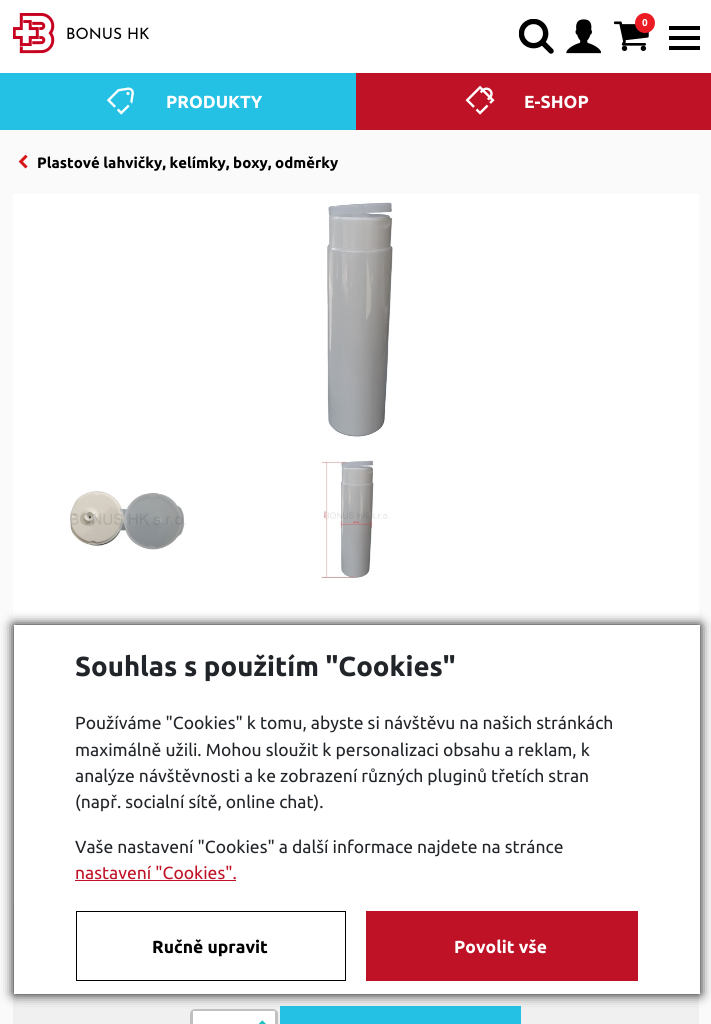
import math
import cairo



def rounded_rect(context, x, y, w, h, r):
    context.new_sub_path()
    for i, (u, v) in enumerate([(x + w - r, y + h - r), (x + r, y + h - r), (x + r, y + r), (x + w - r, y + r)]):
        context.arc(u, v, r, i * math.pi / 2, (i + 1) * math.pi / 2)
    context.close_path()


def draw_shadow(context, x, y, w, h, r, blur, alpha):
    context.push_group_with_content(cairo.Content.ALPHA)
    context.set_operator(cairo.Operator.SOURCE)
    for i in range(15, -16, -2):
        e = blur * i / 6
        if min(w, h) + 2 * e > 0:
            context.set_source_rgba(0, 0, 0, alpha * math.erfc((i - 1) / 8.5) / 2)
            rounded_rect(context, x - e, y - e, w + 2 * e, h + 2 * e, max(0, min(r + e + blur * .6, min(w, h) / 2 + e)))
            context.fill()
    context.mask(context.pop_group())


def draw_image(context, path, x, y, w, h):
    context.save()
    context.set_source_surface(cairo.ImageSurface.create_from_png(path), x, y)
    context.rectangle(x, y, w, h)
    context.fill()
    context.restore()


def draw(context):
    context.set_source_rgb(1, 1, 1)
    context.paint()
    draw_image(context, "images/1.png", 13, 13, 136, 41)
    draw_image(context, "images/2.png", 519, 19, 35, 35)
    draw_image(context, "images/3.png", 566, 19, 35, 35)
    draw_image(context, "images/4.png", 614, 21, 35, 30)
    context.set_source_rgb(237 / 255, 28 / 255, 36 / 255)
    context.arc(645, 23, 10, 0, 2 * math.pi)
    context.fill()
    context.set_source_rgb(0, 0, 0)
    context.rectangle(669, 26, 31, 4)
    context.fill()
    context.rectangle(669, 36, 31, 4)
    context.fill()
    context.rectangle(669, 46, 31, 4)
    context.fill()
    context.set_source_rgb(36 / 255, 193 / 255, 228 / 255)
    context.rectangle(0, 73, 356, 57)
    context.fill()
    context.set_source_rgb(191 / 255, 18 / 255, 38 / 255)
    context.rectangle(356, 73, 355, 57)
    context.fill()
    draw_image(context, "images/5.png", 106, 87, 28, 28)
    draw_image(context, "images/6.png", 465, 85, 30, 30)
    context.set_source_rgb(250 / 255, 250 / 255, 250 / 255)
    context.rectangle(0, 130, 711, 894)
    context.fill()
    draw_image(context, "images/7.png", 18, 154, 10, 15)
    context.set_source_rgb(1, 1, 1)
    context.rectangle(13, 194, 686, 710)
    context.fill()
    draw_image(context, "images/8.png", 327, 202, 66, 235)
    draw_image(context, "images/9.png", 70, 491, 116, 59)
    draw_image(context, "images/10.png", 320, 456, 69, 122)
    context.set_source_rgb(240 / 255, 240 / 255, 240 / 255)
    context.rectangle(13, 904, 686, 120)
    context.fill()
    rounded_rect(context, 191.5, 1010.5, 85, 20, 3.5)
    context.set_source_rgb(192 / 255, 192 / 255, 192 / 255)
    context.set_line_width(3)
    context.stroke()
    context.set_source_rgb(1, 1, 1)
    context.rectangle(193, 1011, 82, 13)
    context.fill()
    draw_image(context, "images/11.png", 258, 1020, 8, 4)
    context.set_source_rgb(36 / 255, 193 / 255, 228 / 255)
    context.rectangle(280, 1006, 241, 18)
    context.fill()
    context.set_source_rgb(0, 0, 0)
    draw_shadow(context, 14, 625, 686, 369, 0, 6, 1)
    context.set_source_rgb(1, 1, 1)
    context.rectangle(14, 625, 686, 369)
    context.fill()
    context.set_source_rgb(191 / 255, 18 / 255, 38 / 255)
    context.rectangle(75, 880, 161, 1)
    context.fill()
    context.rectangle(76.5, 911.5, 269, 69)
    context.set_source_rgb(0, 0, 0)
    context.set_line_width(1)
    context.stroke()
    context.set_source_rgb(191 / 255, 18 / 255, 38 / 255)
    context.rectangle(366, 911, 272, 70)
    context.fill()
    context.select_font_face("Ubuntu", cairo.FontSlant.NORMAL, cairo.FontWeight.BOLD)
    context.set_font_size(10)
    context.set_source_rgb(1, 1, 1)
    context.move_to(642, 26)
    context.show_text("0")
    context.set_font_size(17.5)
    context.move_to(166, 108)
    context.show_text("PRODUKTY")
    context.move_to(524, 108)
    context.show_text("E-SHOP")
    context.set_font_size(15)
    context.set_source_rgb(0, 0, 0)
    context.move_to(37, 168)
    context.show_text("Plastové lahvičky, kelímky, boxy, odměrky")
    context.set_font_size(27.5)
    context.set_source_rgb(33 / 255, 37 / 255, 41 / 255)
    context.move_to(75, 676)
    context.show_text("Souhlas s použitím \"Cookies\"")
    context.select_font_face("Ubuntu")
    context.set_font_size(17.5)
    context.move_to(75, 729)
    context.show_text("Používáme \"Cookies\" k tomu, abyste si návštěvu na našich stránkách")
    context.move_to(75, 756)
    context.show_text("maximálně užili. Mohou sloužit k personalizaci obsahu a reklam, k")
    context.move_to(75, 782)
    context.show_text("analýze návštěvnosti a ke zobrazení různých pluginů třetích stran")
    context.move_to(75, 808)
    context.show_text("(např. socialní sítě, online chat).")
    context.move_to(75, 853)
    context.show_text("Vaše nastavení \"Cookies\" a další informace najdete na stránce")
    context.set_source_rgb(191 / 255, 18 / 255, 38 / 255)
    context.move_to(75, 879)
    context.show_text("nastavení \"Cookies\".")
    context.select_font_face("Ubuntu", cairo.FontSlant.NORMAL, cairo.FontWeight.BOLD)
    context.set_source_rgb(0, 0, 0)
    context.move_to(152, 953)
    context.show_text("Ručně upravit")
    context.set_source_rgb(1, 1, 1)
    context.move_to(454, 953)
    context.show_text("Povolit vše")


surface = cairo.ImageSurface(cairo.Format.RGB24, 711, 1024)
context = cairo.Context(surface)
options = cairo.FontOptions()
options.set_hint_metrics(cairo.HintMetrics.OFF)
options.set_hint_style(cairo.HintStyle.NONE)
context.set_font_options(options)
context.set_miter_limit(4)
draw(context)
surface.write_to_png("out.png")
